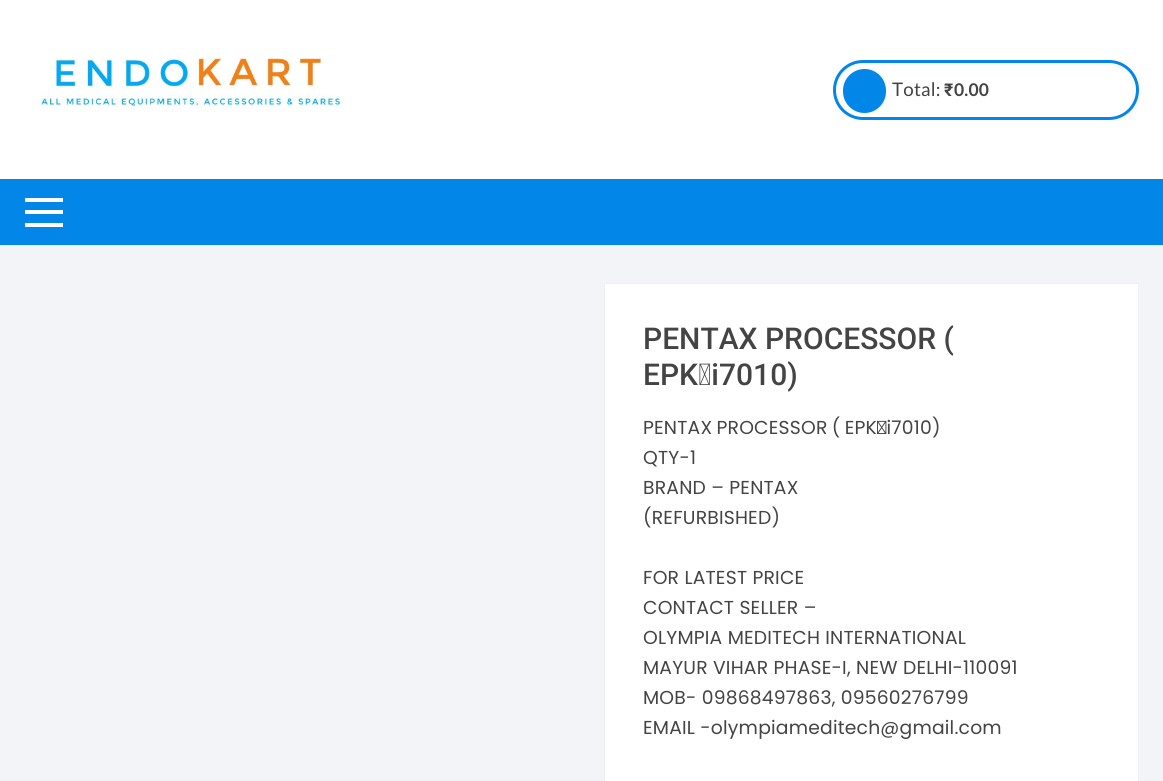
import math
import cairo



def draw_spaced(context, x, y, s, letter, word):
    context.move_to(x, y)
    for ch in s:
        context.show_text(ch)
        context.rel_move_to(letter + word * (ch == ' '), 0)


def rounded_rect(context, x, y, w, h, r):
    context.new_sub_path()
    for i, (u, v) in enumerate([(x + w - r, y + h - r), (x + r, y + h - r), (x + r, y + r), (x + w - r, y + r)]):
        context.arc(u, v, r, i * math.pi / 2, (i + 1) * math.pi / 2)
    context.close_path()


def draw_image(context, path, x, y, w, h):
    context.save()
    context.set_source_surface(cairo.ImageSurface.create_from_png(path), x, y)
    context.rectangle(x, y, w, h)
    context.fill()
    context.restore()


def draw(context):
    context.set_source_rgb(243 / 255, 244 / 255, 248 / 255)
    context.paint()
    context.set_source_rgb(1, 1, 1)
    context.rectangle(0, 0, 1163, 179)
    context.fill()
    draw_image(context, "images/1.png", 40, 58, 304, 51)
    rounded_rect(context, 834.5, 61.5, 303, 57, 28.5)
    context.set_source_rgb(2 / 255, 134 / 255, 231 / 255)
    context.set_line_width(3)
    context.stroke()
    rounded_rect(context, 843, 69, 43, 44, 21.5)
    context.fill()
    context.rectangle(0, 179, 1163, 66)
    context.fill()
    context.set_source_rgb(1, 1, 1)
    context.rectangle(25, 198, 38, 4)
    context.fill()
    context.rectangle(25, 210, 38, 4)
    context.fill()
    context.rectangle(25, 223, 38, 4)
    context.fill()
    context.rectangle(604.5, 283.5, 534, 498)
    context.fill_preserve()
    context.set_source_rgb(238 / 255, 241 / 255, 253 / 255)
    context.set_line_width(1)
    context.stroke()
    context.select_font_face("Lato")
    context.set_font_size(18.75)
    context.set_source_rgb(68 / 255, 68 / 255, 68 / 255)
    draw_spaced(context, 892, 96, "Total:", 0.2, 0)
    context.select_font_face("Roboto", cairo.FontSlant.NORMAL, cairo.FontWeight.BOLD)
    context.set_font_size(17.5)
    draw_spaced(context, 944, 96, "₹", 0.2, 0)
    context.select_font_face("Lato", cairo.FontSlant.NORMAL, cairo.FontWeight.BOLD)
    draw_spaced(context, 954, 96, "0.00", 0.2, 0)
    context.select_font_face("Roboto Medium")
    context.set_font_size(30)
    context.move_to(643, 349)
    context.show_text("PENTAX PROCESSOR (")
    context.move_to(643, 385)
    context.show_text("EPK‑i7010)")
    context.select_font_face("Poppins")
    context.set_font_size(18.75)
    draw_spaced(context, 643, 434, "PENTAX PROCESSOR ( EPK‑i7010)", 0.2, -1)
    draw_spaced(context, 643, 464, "QTY-1", 0.2, 0)
    draw_spaced(context, 643, 494, "BRAND – PENTAX", 0.2, 0)
    draw_spaced(context, 643, 524, "(REFURBISHED)", 0.2, 0)
    draw_spaced(context, 643, 584, "FOR LATEST PRICE", 0.2, 0)
    draw_spaced(context, 643, 614, "CONTACT SELLER –", 0.2, 0)
    draw_spaced(context, 643, 644, "OLYMPIA MEDITECH INTERNATIONAL", 0.2, 0)
    draw_spaced(context, 643, 674, "MAYUR VIHAR PHASE-I, NEW DELHI-110091", 0.2, 0)
    draw_spaced(context, 643, 704, "MOB- 09868497863, 09560276799", 0.2, 0)
    draw_spaced(context, 643, 734, "EMAIL -olympiameditech@gmail.com", 0.2, 0)


surface = cairo.ImageSurface(cairo.Format.RGB24, 1163, 781)
context = cairo.Context(surface)
options = cairo.FontOptions()
options.set_hint_metrics(cairo.HintMetrics.OFF)
options.set_hint_style(cairo.HintStyle.NONE)
context.set_font_options(options)
context.set_miter_limit(4)
draw(context)
surface.write_to_png("out.png")
